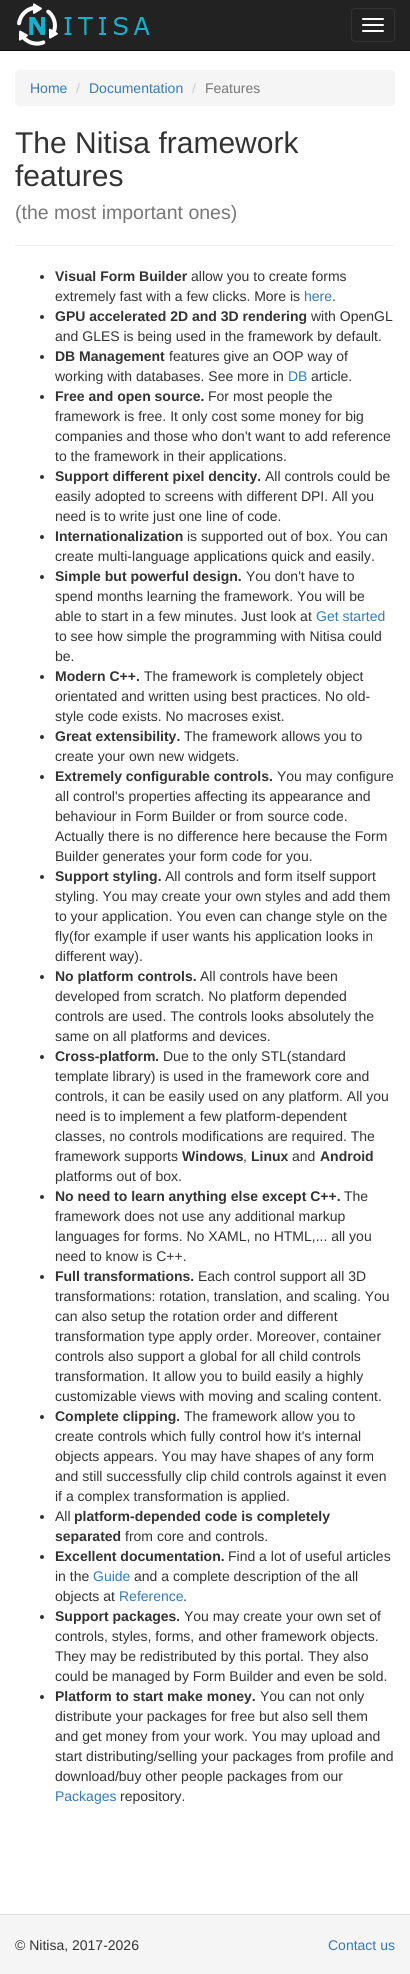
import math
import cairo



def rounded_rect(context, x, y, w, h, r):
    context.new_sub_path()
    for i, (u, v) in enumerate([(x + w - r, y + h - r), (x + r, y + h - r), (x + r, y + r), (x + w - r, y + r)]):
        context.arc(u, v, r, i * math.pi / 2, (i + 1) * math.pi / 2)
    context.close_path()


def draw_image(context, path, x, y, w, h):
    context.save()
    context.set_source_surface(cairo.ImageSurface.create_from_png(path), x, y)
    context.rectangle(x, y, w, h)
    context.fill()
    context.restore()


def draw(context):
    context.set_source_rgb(1, 1, 1)
    context.paint()
    context.set_source_rgb(34 / 255, 34 / 255, 34 / 255)
    context.rectangle(0, 0, 410, 50)
    context.fill()
    context.set_source_rgb(8 / 255, 8 / 255, 8 / 255)
    context.rectangle(0, 50, 410, 1)
    context.fill()
    draw_image(context, "images/1.png", 17, 3, 133, 43)
    rounded_rect(context, 351.5, 8.5, 43, 33, 3.5)
    context.set_source_rgb(51 / 255, 51 / 255, 51 / 255)
    context.set_line_width(1)
    context.stroke()
    context.set_source_rgb(1, 1, 1)
    rounded_rect(context, 362, 18, 22, 2, 1)
    context.fill()
    rounded_rect(context, 362, 24, 22, 2, 1)
    context.fill()
    rounded_rect(context, 362, 30, 22, 2, 1)
    context.fill()
    context.set_source_rgb(245 / 255, 245 / 255, 245 / 255)
    rounded_rect(context, 15, 70, 380, 36, 4)
    context.fill()
    context.set_source_rgb(238 / 255, 238 / 255, 238 / 255)
    context.rectangle(15, 245, 380, 1)
    context.fill()
    context.set_source_rgb(51 / 255, 51 / 255, 51 / 255)
    context.arc(42, 277, 2, 0, 2 * math.pi)
    context.fill()
    context.arc(42, 317, 2, 0, 2 * math.pi)
    context.fill()
    context.arc(42, 357, 2, 0, 2 * math.pi)
    context.fill()
    context.arc(42, 397, 2, 0, 2 * math.pi)
    context.fill()
    context.arc(42, 477, 2, 0, 2 * math.pi)
    context.fill()
    context.arc(42, 537, 2, 0, 2 * math.pi)
    context.fill()
    context.arc(42, 577, 2, 0, 2 * math.pi)
    context.fill()
    context.arc(42, 677, 2, 0, 2 * math.pi)
    context.fill()
    context.arc(42, 737, 2, 0, 2 * math.pi)
    context.fill()
    context.arc(42, 777, 2, 0, 2 * math.pi)
    context.fill()
    context.arc(42, 877, 2, 0, 2 * math.pi)
    context.fill()
    context.arc(42, 977, 2, 0, 2 * math.pi)
    context.fill()
    context.arc(42, 1057, 2, 0, 2 * math.pi)
    context.fill()
    context.arc(42, 1197, 2, 0, 2 * math.pi)
    context.fill()
    context.arc(42, 1277, 2, 0, 2 * math.pi)
    context.fill()
    context.arc(42, 1417, 2, 0, 2 * math.pi)
    context.fill()
    context.arc(42, 1517, 2, 0, 2 * math.pi)
    context.fill()
    context.arc(42, 1557, 2, 0, 2 * math.pi)
    context.fill()
    context.arc(42, 1617, 2, 0, 2 * math.pi)
    context.fill()
    context.arc(42, 1697, 2, 0, 2 * math.pi)
    context.fill()
    context.set_source_rgb(245 / 255, 245 / 255, 245 / 255)
    context.rectangle(0, 1915, 410, 59)
    context.fill()
    context.set_source_rgb(221 / 255, 221 / 255, 221 / 255)
    context.rectangle(0, 1914, 410, 1)
    context.fill()
    context.select_font_face("Liberation Sans")
    context.set_font_size(14)
    context.set_source_rgb(51 / 255, 122 / 255, 183 / 255)
    context.move_to(30, 93)
    context.show_text("Home")
    context.set_source_rgb(204 / 255, 204 / 255, 204 / 255)
    context.move_to(76, 93)
    context.show_text("/")
    context.set_source_rgb(51 / 255, 122 / 255, 183 / 255)
    context.move_to(89, 93)
    context.show_text("Documentation")
    context.set_source_rgb(204 / 255, 204 / 255, 204 / 255)
    context.move_to(192, 93)
    context.show_text("/")
    context.set_source_rgb(119 / 255, 119 / 255, 119 / 255)
    context.move_to(205, 93)
    context.show_text("Features")
    context.set_font_size(30)
    context.set_source_rgb(51 / 255, 51 / 255, 51 / 255)
    context.move_to(15, 153)
    context.show_text("The Nitisa framework")
    context.move_to(15, 186)
    context.show_text("features")
    context.set_font_size(19.5)
    context.set_source_rgb(119 / 255, 119 / 255, 119 / 255)
    context.move_to(15, 219)
    context.show_text("(the most important ones)")
    context.select_font_face("Liberation Sans", cairo.FontSlant.NORMAL, cairo.FontWeight.BOLD)
    context.set_font_size(14)
    context.set_source_rgb(51 / 255, 51 / 255, 51 / 255)
    context.move_to(55, 281)
    context.show_text("Visual Form Builder")
    context.select_font_face("Liberation Sans")
    context.move_to(191, 281)
    context.show_text("allow you to create forms")
    context.move_to(55, 301)
    context.show_text("extremely fast with a few clicks. More is")
    context.set_source_rgb(51 / 255, 122 / 255, 183 / 255)
    context.move_to(304, 301)
    context.show_text("here")
    context.set_source_rgb(51 / 255, 51 / 255, 51 / 255)
    context.move_to(332, 301)
    context.show_text(".")
    context.select_font_face("Liberation Sans", cairo.FontSlant.NORMAL, cairo.FontWeight.BOLD)
    context.move_to(55, 321)
    context.show_text("GPU accelerated 2D and 3D rendering")
    context.select_font_face("Liberation Sans")
    context.move_to(311, 321)
    context.show_text("with OpenGL")
    context.move_to(55, 341)
    context.show_text("and GLES is being used in the framework by default.")
    context.select_font_face("Liberation Sans", cairo.FontSlant.NORMAL, cairo.FontWeight.BOLD)
    context.move_to(55, 361)
    context.show_text("DB Management")
    context.select_font_face("Liberation Sans")
    context.move_to(169, 361)
    context.show_text("features give an OOP way of")
    context.move_to(55, 381)
    context.show_text("working with databases. See more in")
    context.set_source_rgb(51 / 255, 122 / 255, 183 / 255)
    context.move_to(288, 381)
    context.show_text("DB")
    context.set_source_rgb(51 / 255, 51 / 255, 51 / 255)
    context.move_to(311, 381)
    context.show_text("article.")
    context.select_font_face("Liberation Sans", cairo.FontSlant.NORMAL, cairo.FontWeight.BOLD)
    context.move_to(55, 401)
    context.show_text("Free and open source.")
    context.select_font_face("Liberation Sans")
    context.move_to(208, 401)
    context.show_text("For most people the")
    context.move_to(55, 421)
    context.show_text("framework is free. It only cost some money for big")
    context.move_to(55, 441)
    context.show_text("companies and those who don't want to add reference")
    context.move_to(55, 461)
    context.show_text("to the framework in their applications.")
    context.select_font_face("Liberation Sans", cairo.FontSlant.NORMAL, cairo.FontWeight.BOLD)
    context.move_to(55, 481)
    context.show_text("Support different pixel dencity.")
    context.select_font_face("Liberation Sans")
    context.move_to(265, 481)
    context.show_text("All controls could be")
    context.move_to(55, 501)
    context.show_text("easily adopted to screens with different DPI. All you")
    context.move_to(55, 521)
    context.show_text("need is to write just one line of code.")
    context.select_font_face("Liberation Sans", cairo.FontSlant.NORMAL, cairo.FontWeight.BOLD)
    context.move_to(55, 541)
    context.show_text("Internationalization")
    context.select_font_face("Liberation Sans")
    context.move_to(187, 541)
    context.show_text("is supported out of box. You can")
    context.move_to(55, 561)
    context.show_text("create multi-language applications quick and easily.")
    context.select_font_face("Liberation Sans", cairo.FontSlant.NORMAL, cairo.FontWeight.BOLD)
    context.move_to(55, 581)
    context.show_text("Simple but powerful design.")
    context.select_font_face("Liberation Sans")
    context.move_to(246, 581)
    context.show_text("You don't have to")
    context.move_to(55, 601)
    context.show_text("spend months learning the framework. You will be")
    context.move_to(55, 621)
    context.show_text("able to start in a few minutes. Just look at")
    context.set_source_rgb(51 / 255, 122 / 255, 183 / 255)
    context.move_to(316, 621)
    context.show_text("Get started")
    context.set_source_rgb(51 / 255, 51 / 255, 51 / 255)
    context.move_to(55, 641)
    context.show_text("to see how simple the programming with Nitisa could")
    context.move_to(55, 661)
    context.show_text("be.")
    context.select_font_face("Liberation Sans", cairo.FontSlant.NORMAL, cairo.FontWeight.BOLD)
    context.move_to(55, 681)
    context.show_text("Modern C++.")
    context.select_font_face("Liberation Sans")
    context.move_to(144, 681)
    context.show_text("The framework is completely object")
    context.move_to(55, 701)
    context.show_text("orientated and written using best practices. No old-")
    context.move_to(55, 721)
    context.show_text("style code exists. No macroses exist.")
    context.select_font_face("Liberation Sans", cairo.FontSlant.NORMAL, cairo.FontWeight.BOLD)
    context.move_to(55, 741)
    context.show_text("Great extensibility.")
    context.select_font_face("Liberation Sans")
    context.move_to(184, 741)
    context.show_text("The framework allows you to")
    context.move_to(55, 761)
    context.show_text("create your own new widgets.")
    context.select_font_face("Liberation Sans", cairo.FontSlant.NORMAL, cairo.FontWeight.BOLD)
    context.move_to(55, 781)
    context.show_text("Extremely configurable controls.")
    context.select_font_face("Liberation Sans")
    context.move_to(277, 781)
    context.show_text("You may configure")
    context.move_to(55, 801)
    context.show_text("all control's properties affecting its appearance and")
    context.move_to(55, 821)
    context.show_text("behaviour in Form Builder or from source code.")
    context.move_to(55, 841)
    context.show_text("Actually there is no difference here because the Form")
    context.move_to(55, 861)
    context.show_text("Builder generates your form code for you.")
    context.select_font_face("Liberation Sans", cairo.FontSlant.NORMAL, cairo.FontWeight.BOLD)
    context.move_to(55, 881)
    context.show_text("Support styling.")
    context.select_font_face("Liberation Sans")
    context.move_to(165, 881)
    context.show_text("All controls and form itself support")
    context.move_to(55, 901)
    context.show_text("styling. You may create your own styles and add them")
    context.move_to(55, 921)
    context.show_text("to your application. You even can change style on the")
    context.move_to(55, 941)
    context.show_text("fly(for example if user wants his application looks in")
    context.move_to(55, 961)
    context.show_text("different way).")
    context.select_font_face("Liberation Sans", cairo.FontSlant.NORMAL, cairo.FontWeight.BOLD)
    context.move_to(55, 981)
    context.show_text("No platform controls.")
    context.select_font_face("Liberation Sans")
    context.move_to(200, 981)
    context.show_text("All controls have been")
    context.move_to(55, 1001)
    context.show_text("developed from scratch. No platform depended")
    context.move_to(55, 1021)
    context.show_text("controls are used. The controls looks absolutely the")
    context.move_to(55, 1041)
    context.show_text("same on all platforms and devices.")
    context.select_font_face("Liberation Sans", cairo.FontSlant.NORMAL, cairo.FontWeight.BOLD)
    context.move_to(55, 1061)
    context.show_text("Cross-platform.")
    context.select_font_face("Liberation Sans")
    context.move_to(163, 1061)
    context.show_text("Due to the only STL(standard")
    context.move_to(55, 1081)
    context.show_text("template library) is used in the framework core and")
    context.move_to(55, 1101)
    context.show_text("controls, it can be easily used on any platform. All you")
    context.move_to(55, 1121)
    context.show_text("need is to implement a few platform-dependent")
    context.move_to(55, 1141)
    context.show_text("classes, no controls modifications are required. The")
    context.move_to(55, 1161)
    context.show_text("framework supports")
    context.select_font_face("Liberation Sans", cairo.FontSlant.NORMAL, cairo.FontWeight.BOLD)
    context.move_to(182, 1161)
    context.show_text("Windows")
    context.select_font_face("Liberation Sans")
    context.move_to(243, 1161)
    context.show_text(",")
    context.select_font_face("Liberation Sans", cairo.FontSlant.NORMAL, cairo.FontWeight.BOLD)
    context.move_to(251, 1161)
    context.show_text("Linux")
    context.select_font_face("Liberation Sans")
    context.move_to(292, 1161)
    context.show_text("and")
    context.select_font_face("Liberation Sans", cairo.FontSlant.NORMAL, cairo.FontWeight.BOLD)
    context.move_to(320, 1161)
    context.show_text("Android")
    context.select_font_face("Liberation Sans")
    context.move_to(55, 1181)
    context.show_text("platforms out of box.")
    context.select_font_face("Liberation Sans", cairo.FontSlant.NORMAL, cairo.FontWeight.BOLD)
    context.move_to(55, 1201)
    context.show_text("No need to learn anything else except C++.")
    context.select_font_face("Liberation Sans")
    context.move_to(344, 1201)
    context.show_text("The")
    context.move_to(55, 1221)
    context.show_text("framework does not use any additional markup")
    context.move_to(55, 1241)
    context.show_text("languages for forms. No XAML, no HTML,... all you")
    context.move_to(55, 1261)
    context.show_text("need to know is C++.")
    context.select_font_face("Liberation Sans", cairo.FontSlant.NORMAL, cairo.FontWeight.BOLD)
    context.move_to(55, 1281)
    context.show_text("Full transformations.")
    context.select_font_face("Liberation Sans")
    context.move_to(198, 1281)
    context.show_text("Each control support all 3D")
    context.move_to(55, 1301)
    context.show_text("transformations: rotation, translation, and scaling. You")
    context.move_to(55, 1321)
    context.show_text("can also setup the rotation order and different")
    context.move_to(55, 1341)
    context.show_text("transformation type apply order. Moreover, container")
    context.move_to(55, 1361)
    context.show_text("controls also support a global for all child controls")
    context.move_to(55, 1381)
    context.show_text("transformation. It allow you to build easily a highly")
    context.move_to(55, 1401)
    context.show_text("customizable views with moving and scaling content.")
    context.select_font_face("Liberation Sans", cairo.FontSlant.NORMAL, cairo.FontWeight.BOLD)
    context.move_to(55, 1421)
    context.show_text("Complete clipping.")
    context.select_font_face("Liberation Sans")
    context.move_to(184, 1421)
    context.show_text("The framework allow you to")
    context.move_to(55, 1441)
    context.show_text("create controls which fully control how it's internal")
    context.move_to(55, 1461)
    context.show_text("objects appears. You may have shapes of any form")
    context.move_to(55, 1481)
    context.show_text("and still successfully clip child controls against it even")
    context.move_to(55, 1501)
    context.show_text("if a complex transformation is applied.")
    context.move_to(55, 1521)
    context.show_text("All")
    context.select_font_face("Liberation Sans", cairo.FontSlant.NORMAL, cairo.FontWeight.BOLD)
    context.move_to(74, 1521)
    context.show_text("platform-depended code is completely")
    context.move_to(55, 1541)
    context.show_text("separated")
    context.select_font_face("Liberation Sans")
    context.move_to(125, 1541)
    context.show_text("from core and controls.")
    context.select_font_face("Liberation Sans", cairo.FontSlant.NORMAL, cairo.FontWeight.BOLD)
    context.move_to(55, 1561)
    context.show_text("Excellent documentation.")
    context.select_font_face("Liberation Sans")
    context.move_to(228, 1561)
    context.show_text("Find a lot of useful articles")
    context.move_to(55, 1581)
    context.show_text("in the")
    context.set_source_rgb(51 / 255, 122 / 255, 183 / 255)
    context.move_to(93, 1581)
    context.show_text("Guide")
    context.set_source_rgb(51 / 255, 51 / 255, 51 / 255)
    context.move_to(134, 1581)
    context.show_text("and a complete description of the all")
    context.move_to(55, 1601)
    context.show_text("objects at")
    context.set_source_rgb(51 / 255, 122 / 255, 183 / 255)
    context.move_to(119, 1601)
    context.show_text("Reference")
    context.set_source_rgb(51 / 255, 51 / 255, 51 / 255)
    context.move_to(183, 1601)
    context.show_text(".")
    context.select_font_face("Liberation Sans", cairo.FontSlant.NORMAL, cairo.FontWeight.BOLD)
    context.move_to(55, 1621)
    context.show_text("Support packages.")
    context.select_font_face("Liberation Sans")
    context.move_to(184, 1621)
    context.show_text("You may create your own set of")
    context.move_to(55, 1641)
    context.show_text("controls, styles, forms, and other framework objects.")
    context.move_to(55, 1661)
    context.show_text("They may be redistributed by this portal. They also")
    context.move_to(55, 1681)
    context.show_text("could be managed by Form Builder and even be sold.")
    context.select_font_face("Liberation Sans", cairo.FontSlant.NORMAL, cairo.FontWeight.BOLD)
    context.move_to(55, 1701)
    context.show_text("Platform to start make money.")
    context.select_font_face("Liberation Sans")
    context.move_to(260, 1701)
    context.show_text("You can not only")
    context.move_to(55, 1721)
    context.show_text("distribute your packages for free but also sell them")
    context.move_to(55, 1741)
    context.show_text("and get money from your work. You may upload and")
    context.move_to(55, 1761)
    context.show_text("start distributing/selling your packages from profile and")
    context.move_to(55, 1781)
    context.show_text("download/buy other people packages from our")
    context.set_source_rgb(51 / 255, 122 / 255, 183 / 255)
    context.move_to(55, 1801)
    context.show_text("Packages")
    context.set_source_rgb(51 / 255, 51 / 255, 51 / 255)
    context.move_to(120, 1801)
    context.show_text("repository.")
    context.move_to(15, 1950)
    context.show_text("© Nitisa, 2017-2026")
    context.set_source_rgb(51 / 255, 122 / 255, 183 / 255)
    context.move_to(328, 1950)
    context.show_text("Contact us")


surface = cairo.ImageSurface(cairo.Format.RGB24, 410, 1974)
context = cairo.Context(surface)
options = cairo.FontOptions()
options.set_hint_metrics(cairo.HintMetrics.OFF)
options.set_hint_style(cairo.HintStyle.NONE)
context.set_font_options(options)
context.set_miter_limit(4)
draw(context)
surface.write_to_png("out.png")
